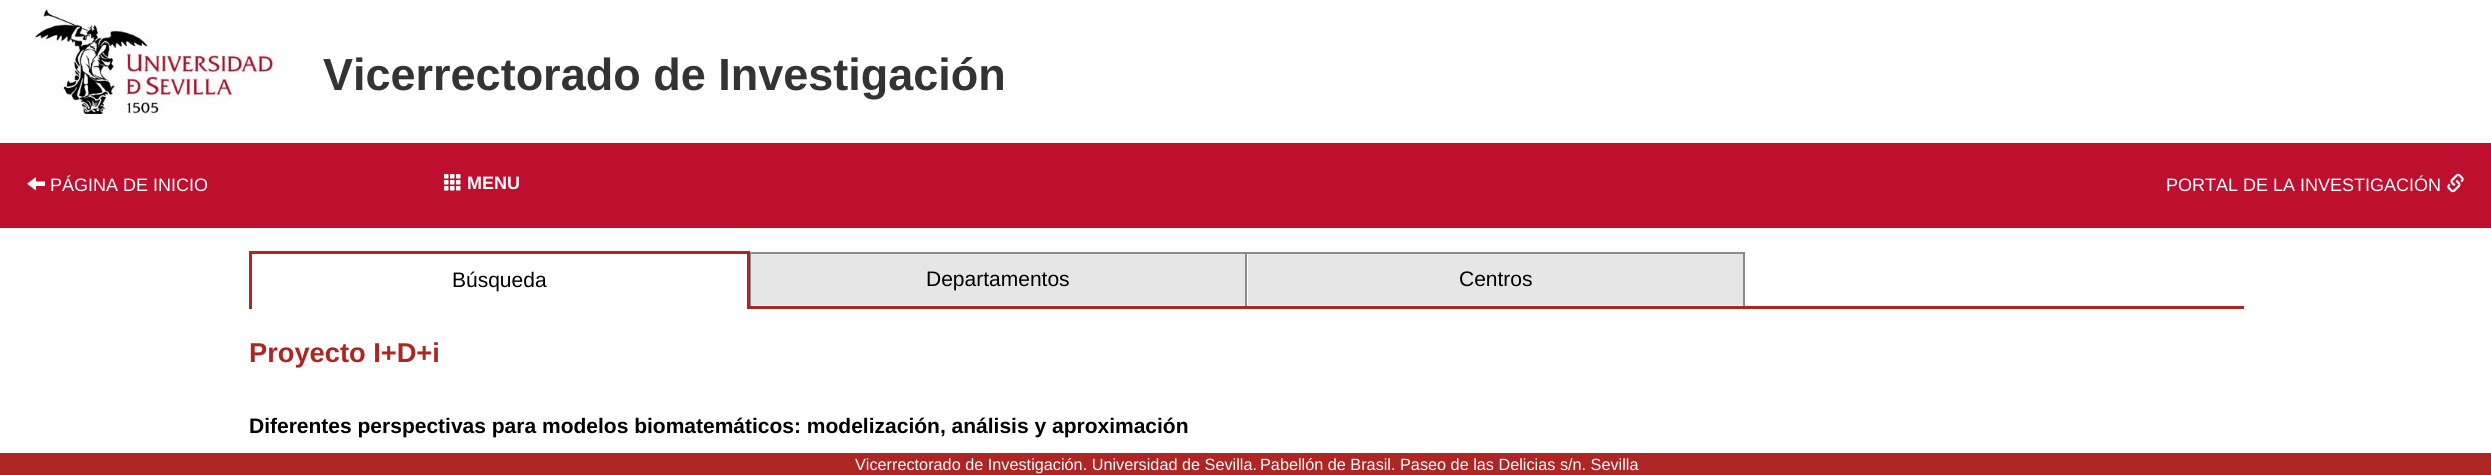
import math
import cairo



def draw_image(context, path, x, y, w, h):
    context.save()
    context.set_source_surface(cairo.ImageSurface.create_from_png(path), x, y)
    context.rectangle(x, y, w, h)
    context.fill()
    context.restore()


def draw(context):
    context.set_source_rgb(1, 1, 1)
    context.paint()
    draw_image(context, "images/1.png", 35, 7, 240, 108)
    context.set_source_rgb(190 / 255, 15 / 255, 46 / 255)
    context.rectangle(0, 143, 2491, 85)
    context.fill()
    draw_image(context, "images/2.png", 27, 177, 18, 14)
    draw_image(context, "images/3.png", 444, 174, 17, 17)
    draw_image(context, "images/4.png", 2447, 173, 17, 20)
    context.set_source_rgb(141 / 255, 138 / 255, 138 / 255)
    context.rectangle(1743, 252, 2, 56)
    context.fill()
    context.rectangle(1245, 252, 500, 2)
    context.fill()
    context.rectangle(1245, 252, 2, 56)
    context.fill()
    context.rectangle(749, 252, 498, 2)
    context.fill()
    context.set_source_rgb(173 / 255, 38 / 255, 36 / 255)
    context.rectangle(249, 251, 501, 3)
    context.fill()
    context.set_source_rgb(141 / 255, 138 / 255, 138 / 255)
    context.rectangle(750, 252, 1, 56)
    context.fill()
    context.set_source_rgb(173 / 255, 38 / 255, 36 / 255)
    context.rectangle(747, 306, 1497, 3)
    context.fill()
    context.rectangle(747, 251, 3, 58)
    context.fill()
    context.rectangle(249, 251, 3, 58)
    context.fill()
    context.set_source_rgb(230 / 255, 230 / 255, 230 / 255)
    context.rectangle(751, 254, 494, 51)
    context.fill()
    context.rectangle(1248, 254, 495, 51)
    context.fill()
    context.set_source_rgb(173 / 255, 38 / 255, 36 / 255)
    context.rectangle(0, 453, 2491, 22)
    context.fill()
    context.select_font_face("Liberation Sans", cairo.FontSlant.NORMAL, cairo.FontWeight.BOLD)
    context.set_font_size(45)
    context.set_source_rgb(51 / 255, 51 / 255, 51 / 255)
    context.move_to(323, 90)
    context.show_text("Vicerrectorado de Investigación")
    context.select_font_face("Liberation Sans")
    context.set_font_size(18)
    context.set_source_rgb(1, 1, 1)
    context.move_to(50, 191)
    context.show_text("PÁGINA DE INICIO")
    context.select_font_face("Liberation Sans", cairo.FontSlant.NORMAL, cairo.FontWeight.BOLD)
    context.move_to(467, 189)
    context.show_text("MENU")
    context.select_font_face("Liberation Sans")
    context.move_to(2166, 191)
    context.show_text("PORTAL DE LA INVESTIGACIÓN")
    context.set_font_size(21)
    context.set_source_rgb(0, 0, 0)
    context.move_to(452, 287)
    context.show_text("Búsqueda")
    context.move_to(926, 286)
    context.show_text("Departamentos")
    context.move_to(1459, 286)
    context.show_text("Centros")
    context.select_font_face("Liberation Sans", cairo.FontSlant.NORMAL, cairo.FontWeight.BOLD)
    context.set_font_size(27.25)
    context.set_source_rgb(173 / 255, 38 / 255, 36 / 255)
    context.move_to(249, 362)
    context.show_text("Proyecto I+D+i")
    context.set_font_size(21)
    context.set_source_rgb(0, 0, 0)
    context.move_to(249, 433)
    context.show_text("Diferentes perspectivas para modelos biomatemáticos: modelización, análisis y aproximación")
    context.select_font_face("Liberation Sans")
    context.set_font_size(16.25)
    context.set_source_rgb(1, 1, 1)
    context.move_to(855, 470)
    context.show_text("Vicerrectorado de Investigación. Universidad de Sevilla.")
    context.move_to(1260, 470)
    context.show_text("Pabellón de Brasil. Paseo de las Delicias s/n. Sevilla")


surface = cairo.ImageSurface(cairo.Format.RGB24, 2491, 475)
context = cairo.Context(surface)
options = cairo.FontOptions()
options.set_hint_metrics(cairo.HintMetrics.OFF)
options.set_hint_style(cairo.HintStyle.NONE)
context.set_font_options(options)
context.set_miter_limit(4)
draw(context)
surface.write_to_png("out.png")
